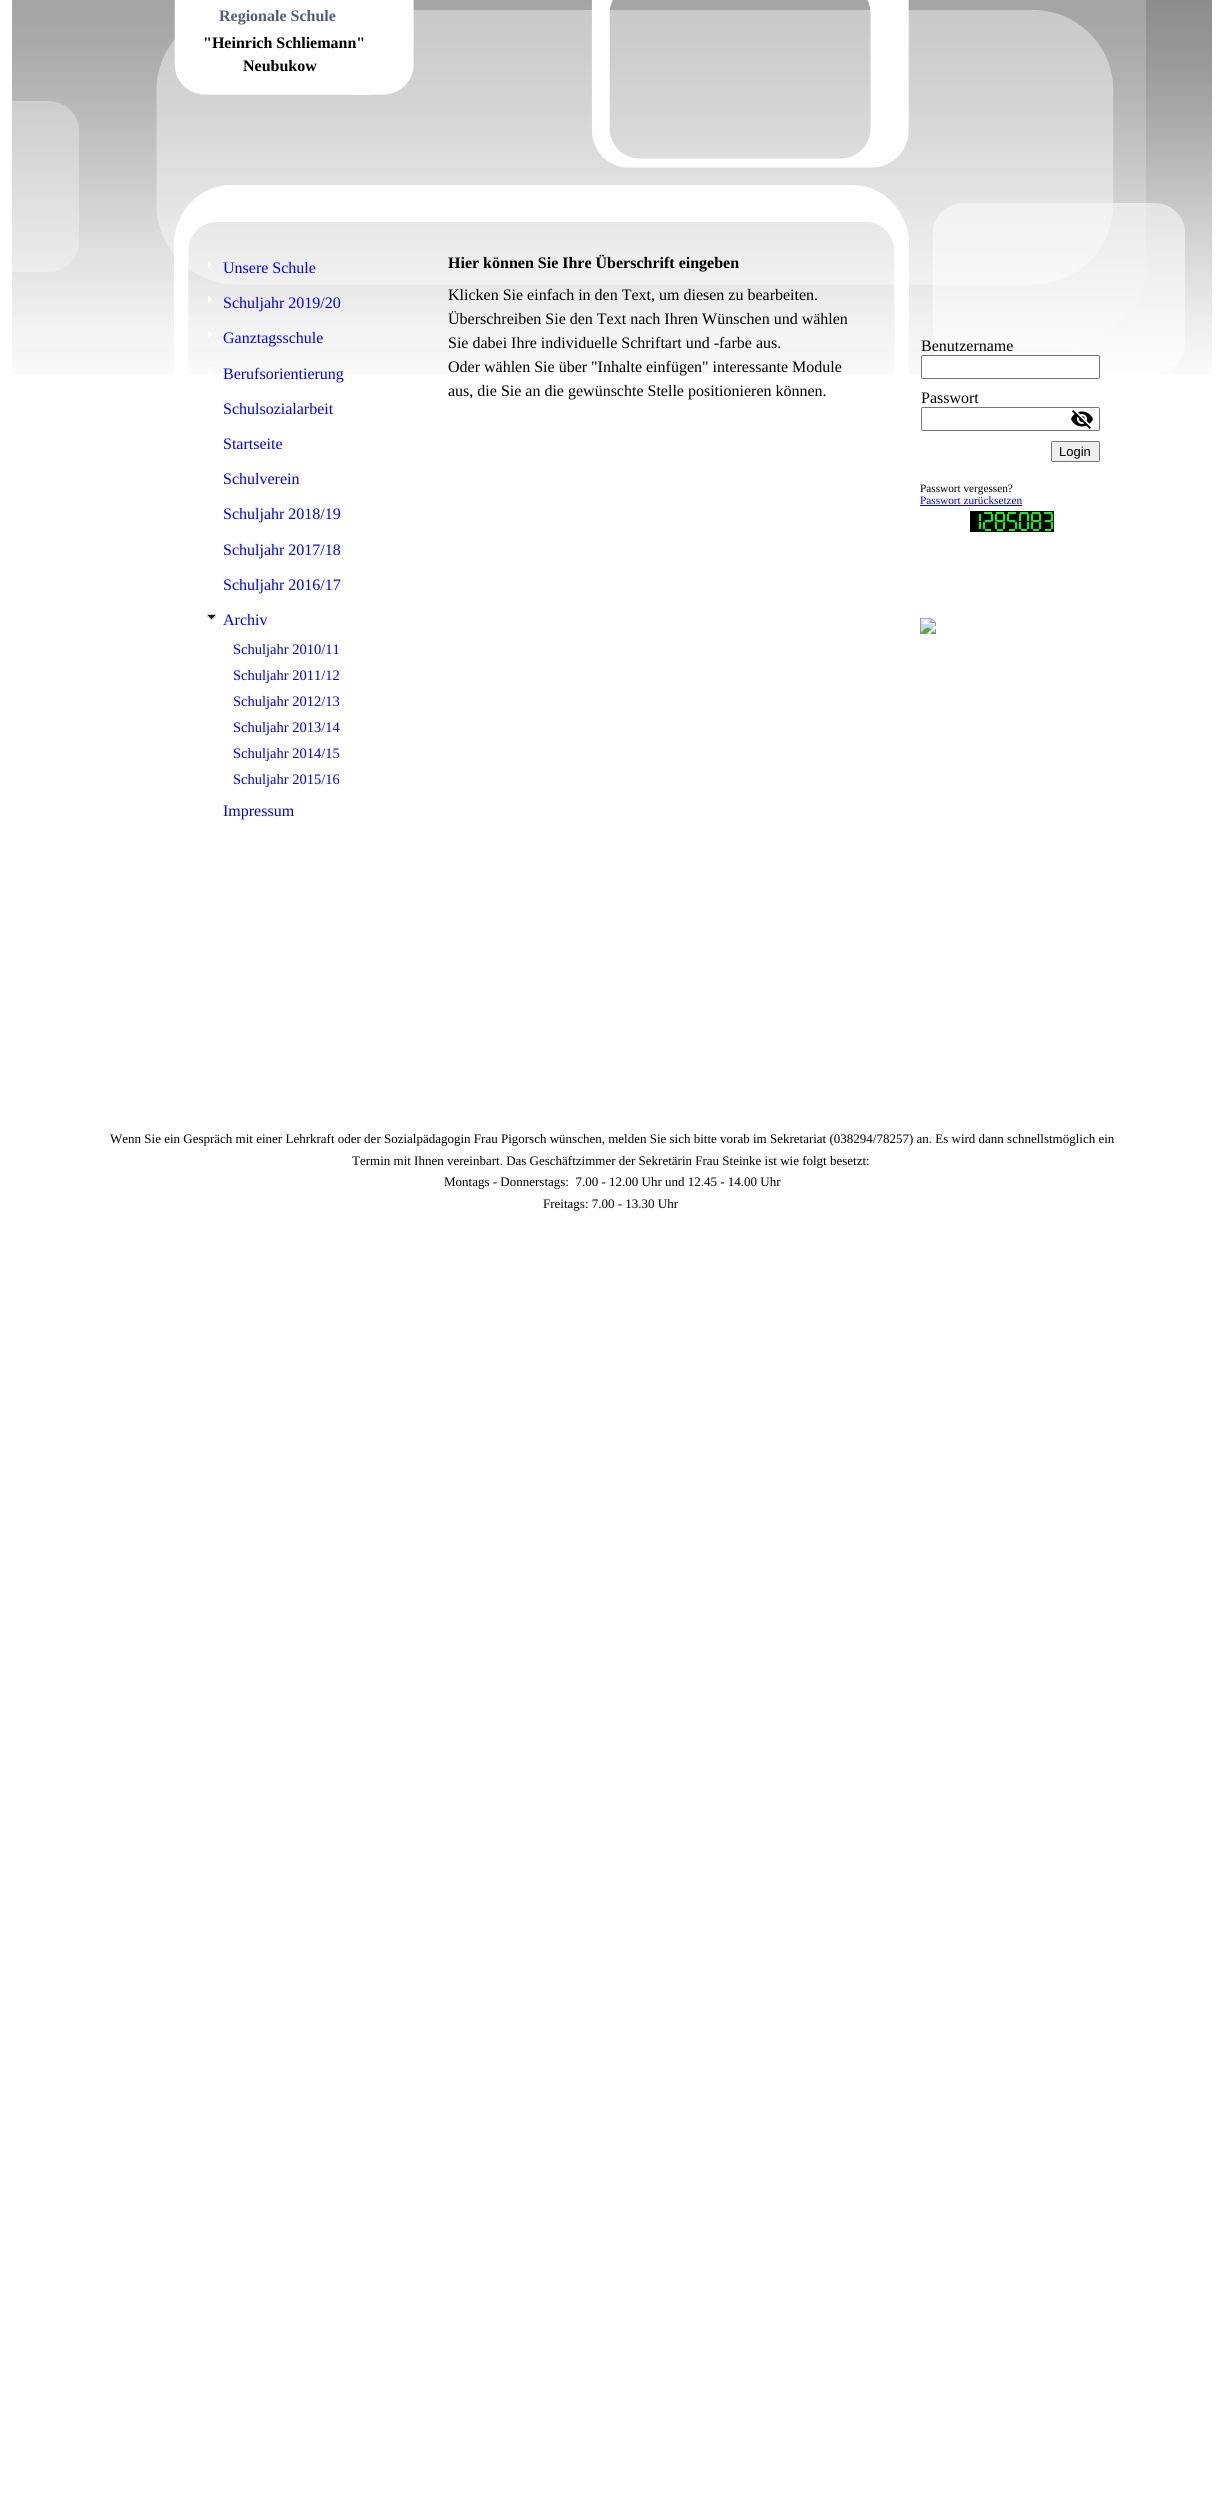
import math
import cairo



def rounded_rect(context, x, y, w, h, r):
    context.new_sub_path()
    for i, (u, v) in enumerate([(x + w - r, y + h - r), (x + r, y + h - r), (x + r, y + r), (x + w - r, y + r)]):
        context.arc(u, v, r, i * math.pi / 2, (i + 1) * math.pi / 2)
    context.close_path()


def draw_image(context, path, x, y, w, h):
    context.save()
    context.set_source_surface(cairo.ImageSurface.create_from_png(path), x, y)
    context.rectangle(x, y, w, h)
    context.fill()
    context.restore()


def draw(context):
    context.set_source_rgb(1, 1, 1)
    context.paint()
    draw_image(context, "images/1.png", 12, 0, 1200, 374)
    draw_image(context, "images/2.png", 174, 0, 735, 168)
    draw_image(context, "images/3.png", 174, 185, 735, 118)
    draw_image(context, "images/4.png", 174, 238, 735, 140)
    draw_image(context, "images/5.png", 208, 261, 4, 7)
    draw_image(context, "images/6.png", 208, 296, 4, 7)
    draw_image(context, "images/7.png", 208, 331, 4, 7)
    draw_image(context, "images/8.png", 208, 367, 4, 7)
    draw_image(context, "images/9.png", 207, 614, 9, 6)
    draw_image(context, "images/10.png", 207, 614, 9, 6)
    context.set_source_rgb(1, 1, 1)
    rounded_rect(context, 921.5, 355.5, 178, 23, 1.5)
    context.fill_preserve()
    context.set_source_rgb(118 / 255, 118 / 255, 118 / 255)
    context.set_line_width(1)
    context.stroke()
    rounded_rect(context, 921.5, 407.5, 178, 23, 1.5)
    context.stroke()
    draw_image(context, "images/11.png", 1071, 410, 22, 19)
    context.set_source_rgb(239 / 255, 239 / 255, 239 / 255)
    rounded_rect(context, 1051.5, 441.5, 48, 20, 1.5)
    context.fill_preserve()
    context.set_source_rgb(118 / 255, 118 / 255, 118 / 255)
    context.stroke()
    context.set_source_rgb(0, 0, 238 / 255)
    context.rectangle(920, 505, 102, 1)
    context.fill()
    draw_image(context, "images/12.png", 970, 511, 84, 21)
    draw_image(context, "images/13.png", 920, 618, 16, 16)
    context.select_font_face("Liberation Serif", cairo.FontSlant.NORMAL, cairo.FontWeight.BOLD)
    context.set_font_size(16)
    context.set_source_rgb(82 / 255, 95 / 255, 115 / 255)
    context.move_to(219, 21)
    context.show_text("Regionale Schule")
    context.set_source_rgb(0, 0, 0)
    context.move_to(203, 48)
    context.show_text("\"Heinrich Schliemann\"")
    context.move_to(243, 71)
    context.show_text("Neubukow")
    context.select_font_face("Liberation Serif")
    context.set_source_rgb(0, 0, 238 / 255)
    context.move_to(223, 273)
    context.show_text("Unsere Schule")
    context.move_to(223, 308)
    context.show_text("Schuljahr 2019/20")
    context.move_to(223, 343)
    context.show_text("Ganztagsschule")
    context.move_to(223, 379)
    context.show_text("Berufsorientierung")
    context.move_to(223, 414)
    context.show_text("Schulsozialarbeit")
    context.move_to(223, 449)
    context.show_text("Startseite")
    context.move_to(223, 484)
    context.show_text("Schulverein")
    context.move_to(223, 519)
    context.show_text("Schuljahr 2018/19")
    context.move_to(223, 555)
    context.show_text("Schuljahr 2017/18")
    context.move_to(223, 590)
    context.show_text("Schuljahr 2016/17")
    context.move_to(223, 625)
    context.show_text("Archiv")
    context.set_font_size(14.5)
    context.move_to(233, 654)
    context.show_text("Schuljahr 2010/11")
    context.move_to(233, 680)
    context.show_text("Schuljahr 2011/12")
    context.move_to(233, 706)
    context.show_text("Schuljahr 2012/13")
    context.move_to(233, 732)
    context.show_text("Schuljahr 2013/14")
    context.move_to(233, 758)
    context.show_text("Schuljahr 2014/15")
    context.move_to(233, 784)
    context.show_text("Schuljahr 2015/16")
    context.set_font_size(16)
    context.move_to(223, 816)
    context.show_text("Impressum")
    context.select_font_face("Liberation Serif", cairo.FontSlant.NORMAL, cairo.FontWeight.BOLD)
    context.set_source_rgb(0, 0, 0)
    context.move_to(448, 268)
    context.show_text("Hier können Sie Ihre Überschrift eingeben")
    context.select_font_face("Liberation Serif")
    context.move_to(448, 300)
    context.show_text("Klicken Sie einfach in den Text, um diesen zu bearbeiten.")
    context.move_to(448, 324)
    context.show_text("Überschreiben Sie den Text nach Ihren Wünschen und wählen")
    context.move_to(448, 348)
    context.show_text("Sie dabei Ihre individuelle Schriftart und -farbe aus.")
    context.move_to(448, 372)
    context.show_text("Oder wählen Sie über \"Inhalte einfügen\" interessante Module")
    context.move_to(448, 396)
    context.show_text("aus, die Sie an die gewünschte Stelle positionieren können.")
    context.move_to(921, 351)
    context.show_text("Benutzername")
    context.move_to(921, 403)
    context.show_text("Passwort")
    context.select_font_face("Liberation Sans")
    context.set_font_size(13)
    context.move_to(1059, 456)
    context.show_text("Login")
    context.select_font_face("Liberation Serif")
    context.set_font_size(11.25)
    context.move_to(920, 492)
    context.show_text("Passwort vergessen?")
    context.set_source_rgb(0, 0, 238 / 255)
    context.move_to(920, 504)
    context.show_text("Passwort zurücksetzen")
    context.set_font_size(13)
    context.set_source_rgb(0, 0, 0)
    context.move_to(110, 1143)
    context.show_text("Wenn Sie ein Gespräch mit einer Lehrkraft oder der Sozialpädagogin Frau Pigorsch wünschen, melden Sie sich bitte vorab im Sekretariat (038294/78257) an. Es wird dann schnellstmöglich ein")
    context.move_to(352, 1165)
    context.show_text("Termin mit Ihnen vereinbart. Das Geschäftzimmer der Sekretärin Frau Steinke ist wie folgt besetzt:")
    context.move_to(444, 1186)
    context.show_text("Montags - Donnerstags:  7.00 - 12.00 Uhr und 12.45 - 14.00 Uhr")
    context.move_to(543, 1208)
    context.show_text("Freitags: 7.00 - 13.30 Uhr")


surface = cairo.ImageSurface(cairo.Format.RGB24, 1224, 2510)
context = cairo.Context(surface)
options = cairo.FontOptions()
options.set_hint_metrics(cairo.HintMetrics.OFF)
options.set_hint_style(cairo.HintStyle.NONE)
context.set_font_options(options)
context.set_miter_limit(4)
draw(context)
surface.write_to_png("out.png")
